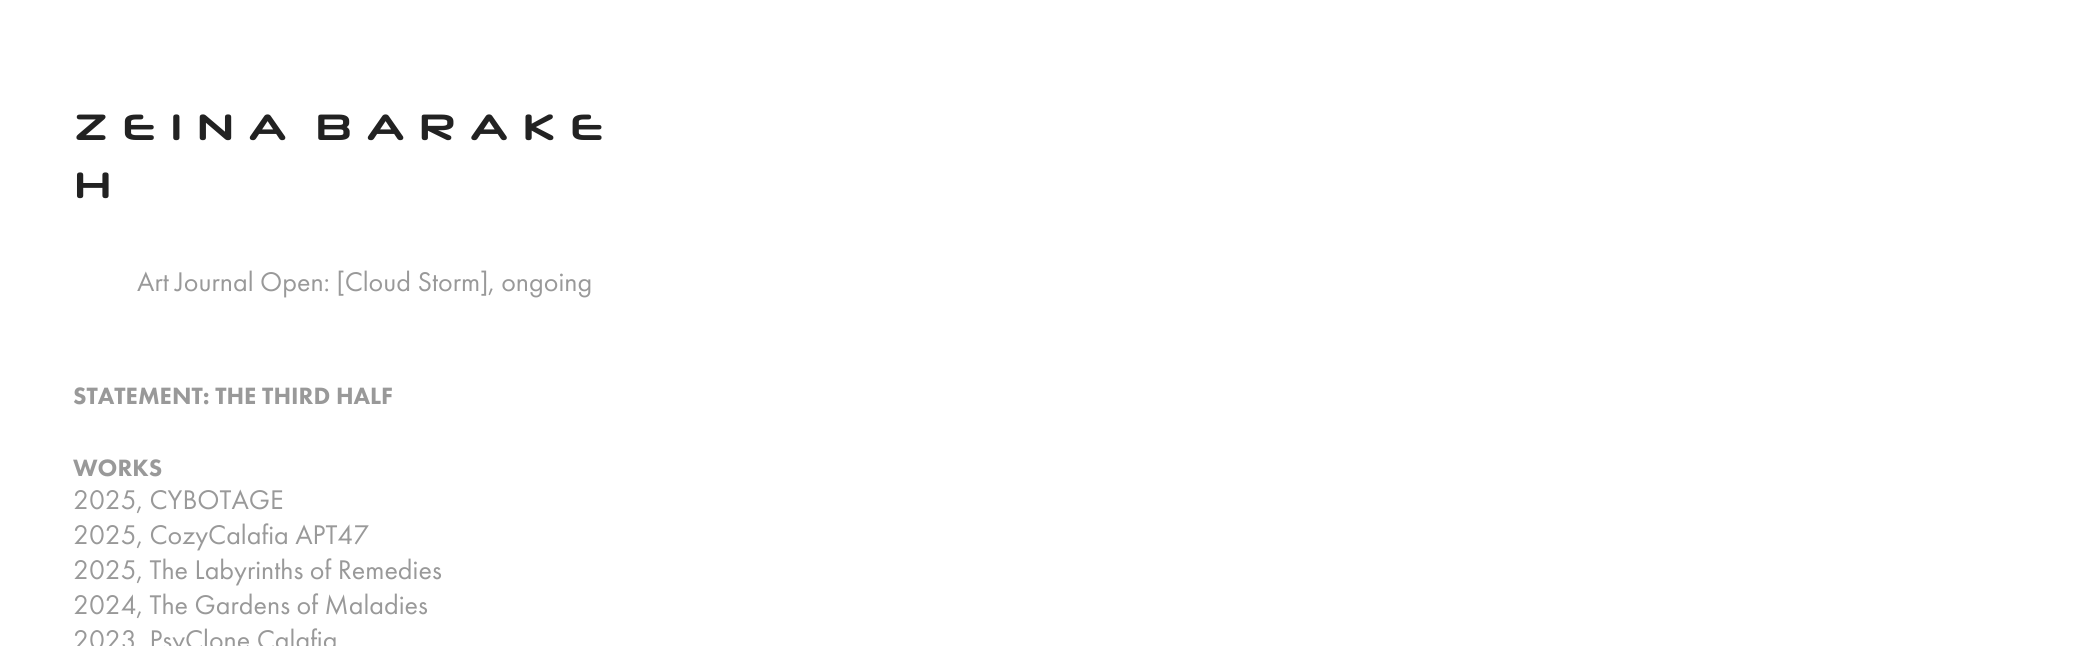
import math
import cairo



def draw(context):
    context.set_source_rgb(1, 1, 1)
    context.paint()
    context.select_font_face("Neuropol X", cairo.FontSlant.NORMAL, cairo.FontWeight.BOLD)
    context.set_font_size(36.75)
    context.set_source_rgb(34 / 255, 34 / 255, 34 / 255)
    context.move_to(74, 140)
    context.show_text("Z E I N A  B A R A K E")
    context.move_to(74, 198)
    context.show_text("H")
    context.select_font_face("Futura PT")
    context.set_font_size(28)
    context.set_source_rgb(153 / 255, 153 / 255, 153 / 255)
    context.move_to(137, 291)
    context.show_text("Art Journal Open: [Cloud Storm], ongoing")
    context.select_font_face("Futura PT Black")
    context.set_font_size(24.5)
    context.move_to(73, 404)
    context.show_text("STATEMENT: THE THIRD HALF")
    context.move_to(73, 476)
    context.show_text("WORKS")
    context.select_font_face("Futura PT")
    context.set_font_size(28)
    context.move_to(73, 509)
    context.show_text("2025, CYBOTAGE")
    context.move_to(73, 544)
    context.show_text("2025, CozyCalafia APT47")
    context.move_to(73, 579)
    context.show_text("2025, The Labyrinths of Remedies")
    context.move_to(73, 614)
    context.show_text("2024, The Gardens of Maladies")
    context.move_to(73, 649)
    context.show_text("2023, PsyClone Calafia")


surface = cairo.ImageSurface(cairo.Format.RGB24, 2084, 646)
context = cairo.Context(surface)
options = cairo.FontOptions()
options.set_hint_metrics(cairo.HintMetrics.OFF)
options.set_hint_style(cairo.HintStyle.NONE)
context.set_font_options(options)
context.set_miter_limit(4)
draw(context)
surface.write_to_png("out.png")
